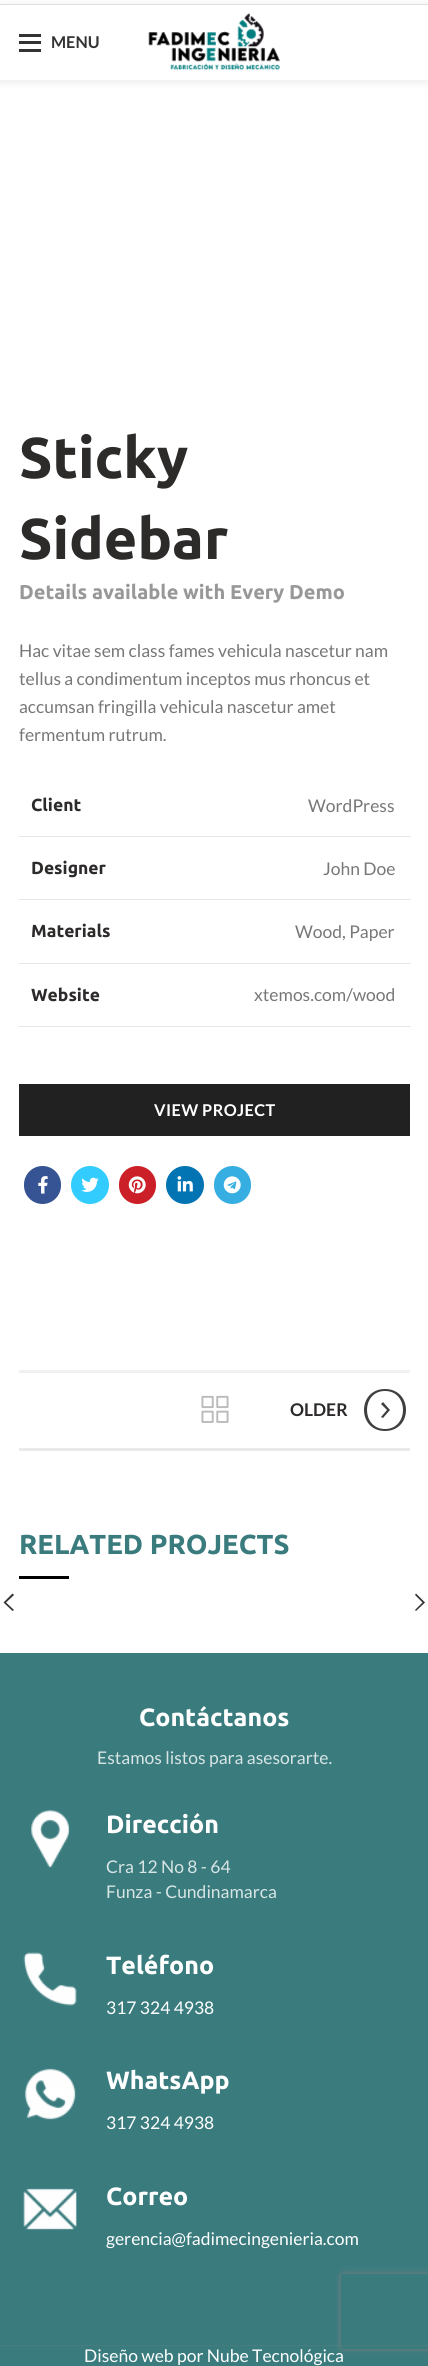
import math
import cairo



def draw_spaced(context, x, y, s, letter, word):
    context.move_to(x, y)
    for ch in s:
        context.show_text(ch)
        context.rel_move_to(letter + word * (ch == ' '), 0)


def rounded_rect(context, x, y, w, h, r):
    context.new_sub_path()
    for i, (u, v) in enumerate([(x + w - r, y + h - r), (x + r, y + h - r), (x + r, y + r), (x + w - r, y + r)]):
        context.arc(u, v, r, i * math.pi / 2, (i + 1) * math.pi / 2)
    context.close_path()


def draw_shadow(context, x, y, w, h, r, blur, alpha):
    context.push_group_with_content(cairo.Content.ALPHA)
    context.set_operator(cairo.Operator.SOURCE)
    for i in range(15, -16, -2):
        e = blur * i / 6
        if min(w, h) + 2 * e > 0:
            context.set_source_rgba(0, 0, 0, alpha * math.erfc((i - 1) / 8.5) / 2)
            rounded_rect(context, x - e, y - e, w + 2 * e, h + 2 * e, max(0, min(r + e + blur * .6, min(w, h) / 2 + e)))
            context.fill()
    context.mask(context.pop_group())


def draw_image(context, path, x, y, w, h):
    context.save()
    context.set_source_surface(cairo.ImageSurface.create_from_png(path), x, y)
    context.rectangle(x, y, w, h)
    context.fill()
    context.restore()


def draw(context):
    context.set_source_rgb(1, 1, 1)
    context.paint()
    context.set_source_rgb(230 / 255, 230 / 255, 228 / 255)
    context.rectangle(0, 4, 428, 1)
    context.fill()
    context.save()
    context.set_fill_rule(cairo.FillRule.EVEN_ODD)
    context.new_path()
    context.move_to(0, 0)
    context.line_to(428, 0)
    context.line_to(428, 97)
    context.line_to(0, 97)
    context.close_path()
    context.move_to(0, 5)
    context.line_to(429, 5)
    context.line_to(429, 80)
    context.line_to(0, 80)
    context.close_path()
    context.clip()
    context.set_source_rgb(0, 0, 0)
    draw_shadow(context, 0, 6, 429, 75, 0, 5, 0.1)
    context.restore()
    context.set_source_rgb(51 / 255, 51 / 255, 51 / 255)
    context.rectangle(19, 41, 22, 3)
    context.fill()
    context.rectangle(19, 34, 22, 3)
    context.fill()
    context.rectangle(19, 49, 22, 3)
    context.fill()
    draw_image(context, "images/1.png", 148, 13, 132, 58)
    context.set_source_rgb(230 / 255, 230 / 255, 230 / 255)
    context.rectangle(19, 836, 392, 1)
    context.fill()
    context.rectangle(19, 899, 392, 1)
    context.fill()
    context.rectangle(19, 963, 392, 1)
    context.fill()
    context.rectangle(19, 1026, 392, 1)
    context.fill()
    context.set_source_rgb(33 / 255, 33 / 255, 33 / 255)
    context.rectangle(19, 1084, 391, 52)
    context.fill()
    context.set_source_rgb(54 / 255, 84 / 255, 147 / 255)
    rounded_rect(context, 24, 1166, 37, 38, 18.5)
    context.fill()
    draw_image(context, "images/2.png", 38, 1176, 10, 18)
    context.set_source_rgb(51 / 255, 204 / 255, 1)
    context.arc(90, 1185, 19, 0, 2 * math.pi)
    context.fill()
    draw_image(context, "images/3.png", 81, 1177, 18, 15)
    context.set_source_rgb(203 / 255, 32 / 255, 39 / 255)
    rounded_rect(context, 119, 1166, 37, 38, 18.5)
    context.fill()
    draw_image(context, "images/4.png", 128, 1176, 18, 18)
    context.set_source_rgb(2 / 255, 116 / 255, 179 / 255)
    context.arc(185, 1185, 19, 0, 2 * math.pi)
    context.fill()
    draw_image(context, "images/5.png", 177, 1176, 16, 16)
    context.set_source_rgb(55 / 255, 174 / 255, 226 / 255)
    rounded_rect(context, 214, 1166, 37, 38, 18.5)
    context.fill()
    draw_image(context, "images/6.png", 223, 1176, 18, 18)
    context.set_source_rgb(241 / 255, 241 / 255, 241 / 255)
    context.rectangle(19, 1370, 391, 3)
    context.fill()
    context.set_source_rgb(234 / 255, 234 / 255, 234 / 255)
    context.rectangle(19, 1448, 391, 3)
    context.fill()
    draw_image(context, "images/7.png", 201, 1395, 28, 28)
    context.set_source_rgb(63 / 255, 63 / 255, 63 / 255)
    context.new_path()
    context.move_to(385, 1431)
    context.curve_to(357, 1431, 357, 1389, 385, 1389)
    context.curve_to(413, 1389, 413, 1431, 385, 1431)
    context.close_path()
    context.move_to(385, 1391)
    context.curve_to(361, 1391, 361, 1429, 385, 1429)
    context.curve_to(409, 1429, 409, 1391, 385, 1391)
    context.close_path()
    context.move_to(383, 1418)
    context.line_to(381, 1417)
    context.line_to(387, 1410)
    context.line_to(381, 1404)
    context.line_to(383, 1402)
    context.line_to(390, 1410)
    context.close_path()
    context.fill()
    context.set_source_rgb(0, 0, 0)
    context.rectangle(19, 1576, 50, 3)
    context.fill()
    context.set_source_rgb(51 / 255, 51 / 255, 51 / 255)
    context.new_path()
    context.move_to(14, 1595)
    context.line_to(6, 1602.5)
    context.line_to(14, 1610)
    context.line_to(12.5, 1611)
    context.line_to(3.5, 1602.5)
    context.line_to(12.5, 1593.5)
    context.close_path()
    context.fill()
    context.new_path()
    context.move_to(416, 1593.5)
    context.line_to(425, 1602.5)
    context.line_to(416, 1611)
    context.line_to(415, 1610)
    context.line_to(422.5, 1602.5)
    context.line_to(415, 1595)
    context.close_path()
    context.fill()
    context.set_source_rgb(58 / 255, 123 / 255, 126 / 255)
    context.rectangle(0, 1653, 428, 713)
    context.fill()
    draw_image(context, "images/8.png", 31, 1810, 39, 58)
    draw_image(context, "images/9.png", 23, 1952, 54, 54)
    draw_image(context, "images/10.png", 24, 2068, 52, 52)
    draw_image(context, "images/11.png", 23, 2188, 54, 42)
    context.set_source_rgb(72 / 255, 124 / 255, 127 / 255)
    context.rectangle(0, 2345, 428, 1)
    context.fill()
    context.save()
    context.set_fill_rule(cairo.FillRule.EVEN_ODD)
    context.new_path()
    context.move_to(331, 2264)
    context.line_to(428, 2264)
    context.line_to(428, 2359)
    context.line_to(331, 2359)
    context.close_path()
    context.move_to(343.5, 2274)
    context.line_to(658.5, 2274)
    context.curve_to(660, 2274, 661, 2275, 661, 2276.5)
    context.line_to(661, 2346.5)
    context.curve_to(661, 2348, 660, 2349, 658.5, 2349)
    context.line_to(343.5, 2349)
    context.curve_to(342, 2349, 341, 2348, 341, 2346.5)
    context.line_to(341, 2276.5)
    context.curve_to(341, 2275, 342, 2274, 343.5, 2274)
    context.close_path()
    context.clip()
    context.set_source_rgb(128 / 255, 128 / 255, 128 / 255)
    draw_shadow(context, 341, 2274, 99, 75, 2.5, 3, 1)
    context.restore()
    context.select_font_face("Lato", cairo.FontSlant.NORMAL, cairo.FontWeight.BOLD)
    context.set_font_size(16.25)
    context.set_source_rgb(51 / 255, 51 / 255, 51 / 255)
    context.move_to(51, 48)
    context.show_text("MENU")
    context.select_font_face("Ubuntu", cairo.FontSlant.NORMAL, cairo.FontWeight.BOLD)
    context.set_font_size(57.5)
    context.set_source_rgb(45 / 255, 42 / 255, 42 / 255)
    context.move_to(19, 478)
    context.show_text("Sticky")
    context.move_to(19, 559)
    context.show_text("Sidebar")
    context.set_font_size(20)
    context.set_source_rgb(152 / 255, 152 / 255, 152 / 255)
    context.move_to(19, 599)
    context.show_text("Details available with Every Demo")
    context.select_font_face("Lato")
    context.set_font_size(17.5)
    context.set_source_rgb(119 / 255, 119 / 255, 119 / 255)
    context.move_to(19, 657)
    context.show_text("Hac vitae sem class fames vehicula nascetur nam")
    context.move_to(19, 685)
    context.show_text("tellus a condimentum inceptos mus rhoncus et")
    context.move_to(19, 713)
    context.show_text("accumsan fringilla vehicula nascetur amet")
    context.move_to(19, 741)
    context.show_text("fermentum rutrum.")
    context.select_font_face("Ubuntu", cairo.FontSlant.NORMAL, cairo.FontWeight.BOLD)
    context.set_source_rgb(45 / 255, 42 / 255, 42 / 255)
    context.move_to(31, 811)
    context.show_text("Client")
    context.select_font_face("Lato")
    context.set_source_rgb(119 / 255, 119 / 255, 119 / 255)
    context.move_to(308, 812)
    context.show_text("WordPress")
    context.select_font_face("Ubuntu", cairo.FontSlant.NORMAL, cairo.FontWeight.BOLD)
    context.set_source_rgb(45 / 255, 42 / 255, 42 / 255)
    context.move_to(31, 874)
    context.show_text("Designer")
    context.select_font_face("Lato")
    context.set_source_rgb(119 / 255, 119 / 255, 119 / 255)
    context.move_to(323, 875)
    context.show_text("John Doe")
    context.select_font_face("Ubuntu", cairo.FontSlant.NORMAL, cairo.FontWeight.BOLD)
    context.set_source_rgb(45 / 255, 42 / 255, 42 / 255)
    context.move_to(31, 937)
    context.show_text("Materials")
    context.select_font_face("Lato")
    context.set_source_rgb(119 / 255, 119 / 255, 119 / 255)
    context.move_to(295, 938)
    context.show_text("Wood, Paper")
    context.select_font_face("Ubuntu", cairo.FontSlant.NORMAL, cairo.FontWeight.BOLD)
    context.set_source_rgb(45 / 255, 42 / 255, 42 / 255)
    context.move_to(31, 1001)
    context.show_text("Website")
    context.select_font_face("Lato")
    context.set_source_rgb(119 / 255, 119 / 255, 119 / 255)
    context.move_to(254, 1001)
    context.show_text("xtemos.com/wood")
    context.select_font_face("Lato", cairo.FontSlant.NORMAL, cairo.FontWeight.BOLD)
    context.set_font_size(16.25)
    context.set_source_rgb(1, 1, 1)
    draw_spaced(context, 154, 1116, "VIEW PROJECT", 0.4, 0)
    context.set_font_size(17.5)
    context.set_source_rgb(45 / 255, 42 / 255, 42 / 255)
    context.move_to(290, 1416)
    context.show_text("OLDER")
    context.select_font_face("Ubuntu", cairo.FontSlant.NORMAL, cairo.FontWeight.BOLD)
    context.set_font_size(27.5)
    context.set_source_rgb(58 / 255, 123 / 255, 126 / 255)
    context.move_to(19, 1554)
    context.show_text("RELATED PROJECTS")
    context.set_font_size(25)
    context.set_source_rgb(1, 1, 1)
    context.move_to(139, 1726)
    context.show_text("Contáctanos")
    context.select_font_face("Lato")
    context.set_font_size(17.5)
    context.set_source_rgb(216 / 255, 229 / 255, 229 / 255)
    context.move_to(97, 1764)
    context.show_text("Estamos listos para asesorarte.")
    context.select_font_face("Ubuntu", cairo.FontSlant.NORMAL, cairo.FontWeight.BOLD)
    context.set_font_size(25)
    context.set_source_rgb(1, 1, 1)
    context.move_to(106, 1833)
    context.show_text("Dirección")
    context.select_font_face("Lato")
    context.set_font_size(17.5)
    context.set_source_rgb(216 / 255, 229 / 255, 229 / 255)
    context.move_to(106, 1873)
    context.show_text("Cra 12 No 8 - 64")
    context.move_to(106, 1898)
    context.show_text("Funza - Cundinamarca")
    context.select_font_face("Ubuntu", cairo.FontSlant.NORMAL, cairo.FontWeight.BOLD)
    context.set_font_size(25)
    context.set_source_rgb(1, 1, 1)
    context.move_to(106, 1974)
    context.show_text("Teléfono")
    context.select_font_face("Lato")
    context.set_font_size(17.5)
    context.move_to(106, 2014)
    context.show_text("317 324 4938")
    context.select_font_face("Ubuntu", cairo.FontSlant.NORMAL, cairo.FontWeight.BOLD)
    context.set_font_size(25)
    context.move_to(106, 2089)
    context.show_text("WhatsApp")
    context.select_font_face("Lato")
    context.set_font_size(17.5)
    context.move_to(106, 2129)
    context.show_text("317 324 4938")
    context.select_font_face("Ubuntu", cairo.FontSlant.NORMAL, cairo.FontWeight.BOLD)
    context.set_font_size(25)
    context.move_to(106, 2205)
    context.show_text("Correo")
    context.select_font_face("Lato")
    context.set_font_size(17.5)
    context.move_to(106, 2245)
    context.show_text("gerencia@fadimecingenieria.com")
    context.move_to(84, 2362)
    context.show_text("Diseño web por Nube Tecnológica")


surface = cairo.ImageSurface(cairo.Format.RGB24, 428, 2366)
context = cairo.Context(surface)
options = cairo.FontOptions()
options.set_hint_metrics(cairo.HintMetrics.OFF)
options.set_hint_style(cairo.HintStyle.NONE)
context.set_font_options(options)
context.set_miter_limit(4)
draw(context)
surface.write_to_png("out.png")
